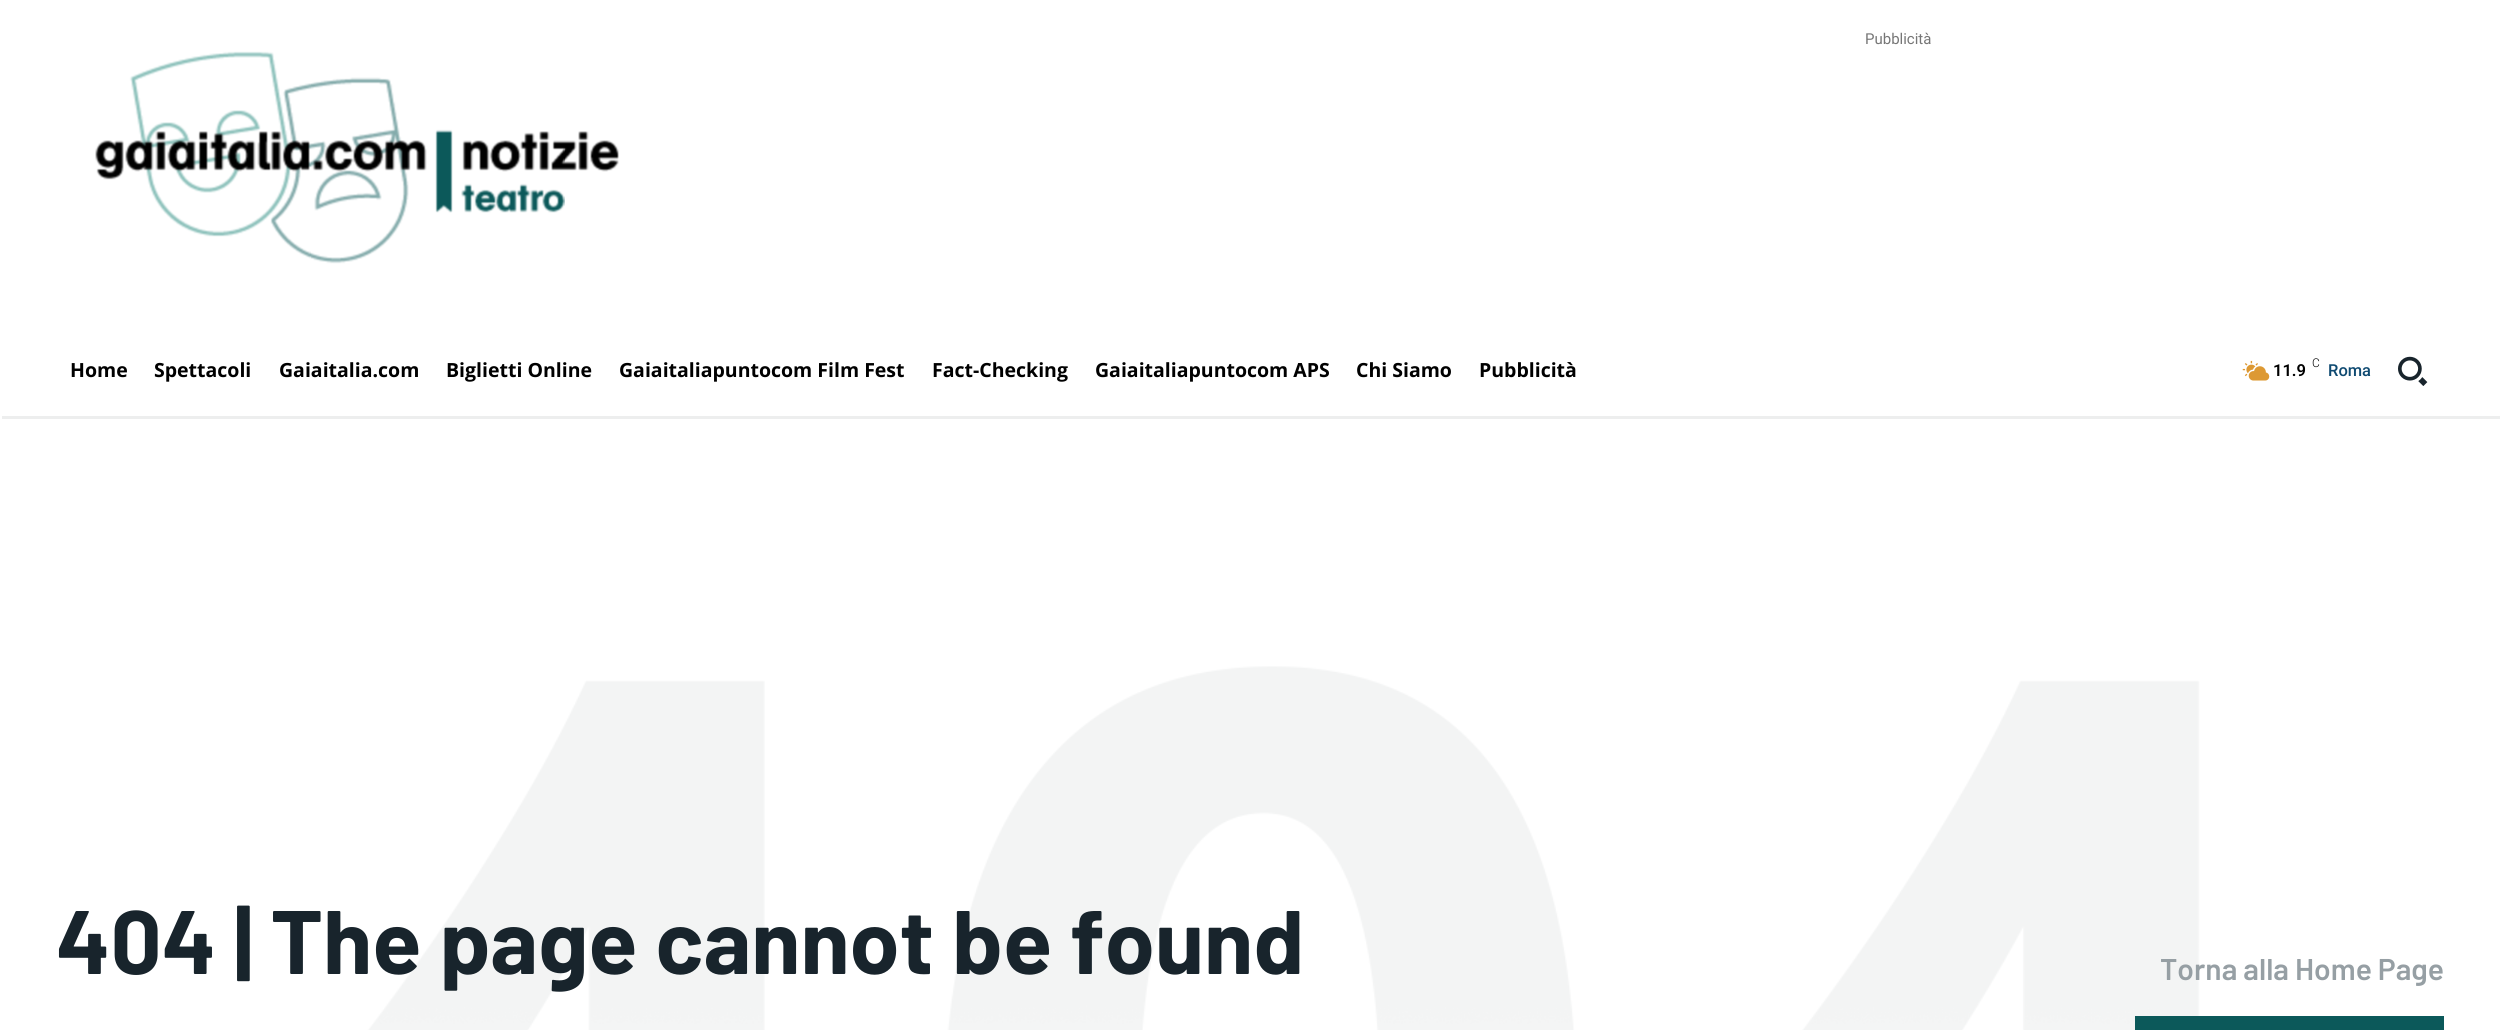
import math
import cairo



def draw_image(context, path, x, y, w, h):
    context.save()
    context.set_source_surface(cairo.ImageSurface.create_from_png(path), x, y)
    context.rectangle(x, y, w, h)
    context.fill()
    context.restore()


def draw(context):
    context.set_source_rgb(1, 1, 1)
    context.paint()
    draw_image(context, "images/1.png", 95, 51, 524, 213)
    draw_image(context, "images/2.png", 2242, 360, 28, 21)
    draw_image(context, "images/3.png", 2398, 356, 30, 30)
    context.set_source_rgb(237 / 255, 238 / 255, 238 / 255)
    context.rectangle(2, 416, 2498, 3)
    context.fill()
    draw_image(context, "images/4.png", 367, 666, 1833, 364)
    context.set_source_rgb(12 / 255, 89 / 255, 90 / 255)
    context.rectangle(2135, 1016, 309, 14)
    context.fill()
    context.select_font_face("Roboto")
    context.set_font_size(15)
    context.set_source_rgb(118 / 255, 118 / 255, 118 / 255)
    context.move_to(1865, 44)
    context.show_text("Pubblicità")
    context.select_font_face("Open Sans", cairo.FontSlant.NORMAL, cairo.FontWeight.BOLD)
    context.set_font_size(19.5)
    context.set_source_rgb(0, 0, 0)
    context.move_to(70, 377)
    context.show_text("Home")
    context.move_to(154, 377)
    context.show_text("Spettacoli")
    context.move_to(279, 377)
    context.show_text("Gaiaitalia.com")
    context.move_to(446, 377)
    context.show_text("Biglietti Online")
    context.move_to(619, 377)
    context.show_text("Gaiaitaliapuntocom Film Fest")
    context.move_to(932, 377)
    context.show_text("Fact-Checking")
    context.move_to(1095, 377)
    context.show_text("Gaiaitaliapuntocom APS")
    context.move_to(1356, 377)
    context.show_text("Chi Siamo")
    context.move_to(1479, 377)
    context.show_text("Pubblicità")
    context.select_font_face("Roboto Light")
    context.set_font_size(12)
    context.move_to(2312, 367)
    context.show_text("C")
    context.select_font_face("Roboto SemiBold")
    context.set_font_size(16.5)
    context.move_to(2273, 376)
    context.show_text("11.9")
    context.select_font_face("Roboto Medium")
    context.set_source_rgb(15 / 255, 74 / 255, 113 / 255)
    context.move_to(2328, 376)
    context.show_text("Roma")
    context.select_font_face("Barlow", cairo.FontSlant.NORMAL, cairo.FontWeight.BOLD)
    context.set_font_size(90)
    context.set_source_rgb(24 / 255, 36 / 255, 44 / 255)
    context.move_to(56, 974)
    context.show_text("404 | The page cannot be found")
    context.select_font_face("Barlow SemiBold")
    context.set_font_size(30)
    context.set_source_rgb(150 / 255, 159 / 255, 164 / 255)
    context.move_to(2160, 980)
    context.show_text("Torna alla Home Page")


surface = cairo.ImageSurface(cairo.Format.RGB24, 2500, 1030)
context = cairo.Context(surface)
options = cairo.FontOptions()
options.set_hint_metrics(cairo.HintMetrics.OFF)
options.set_hint_style(cairo.HintStyle.NONE)
context.set_font_options(options)
context.set_miter_limit(4)
draw(context)
surface.write_to_png("out.png")
